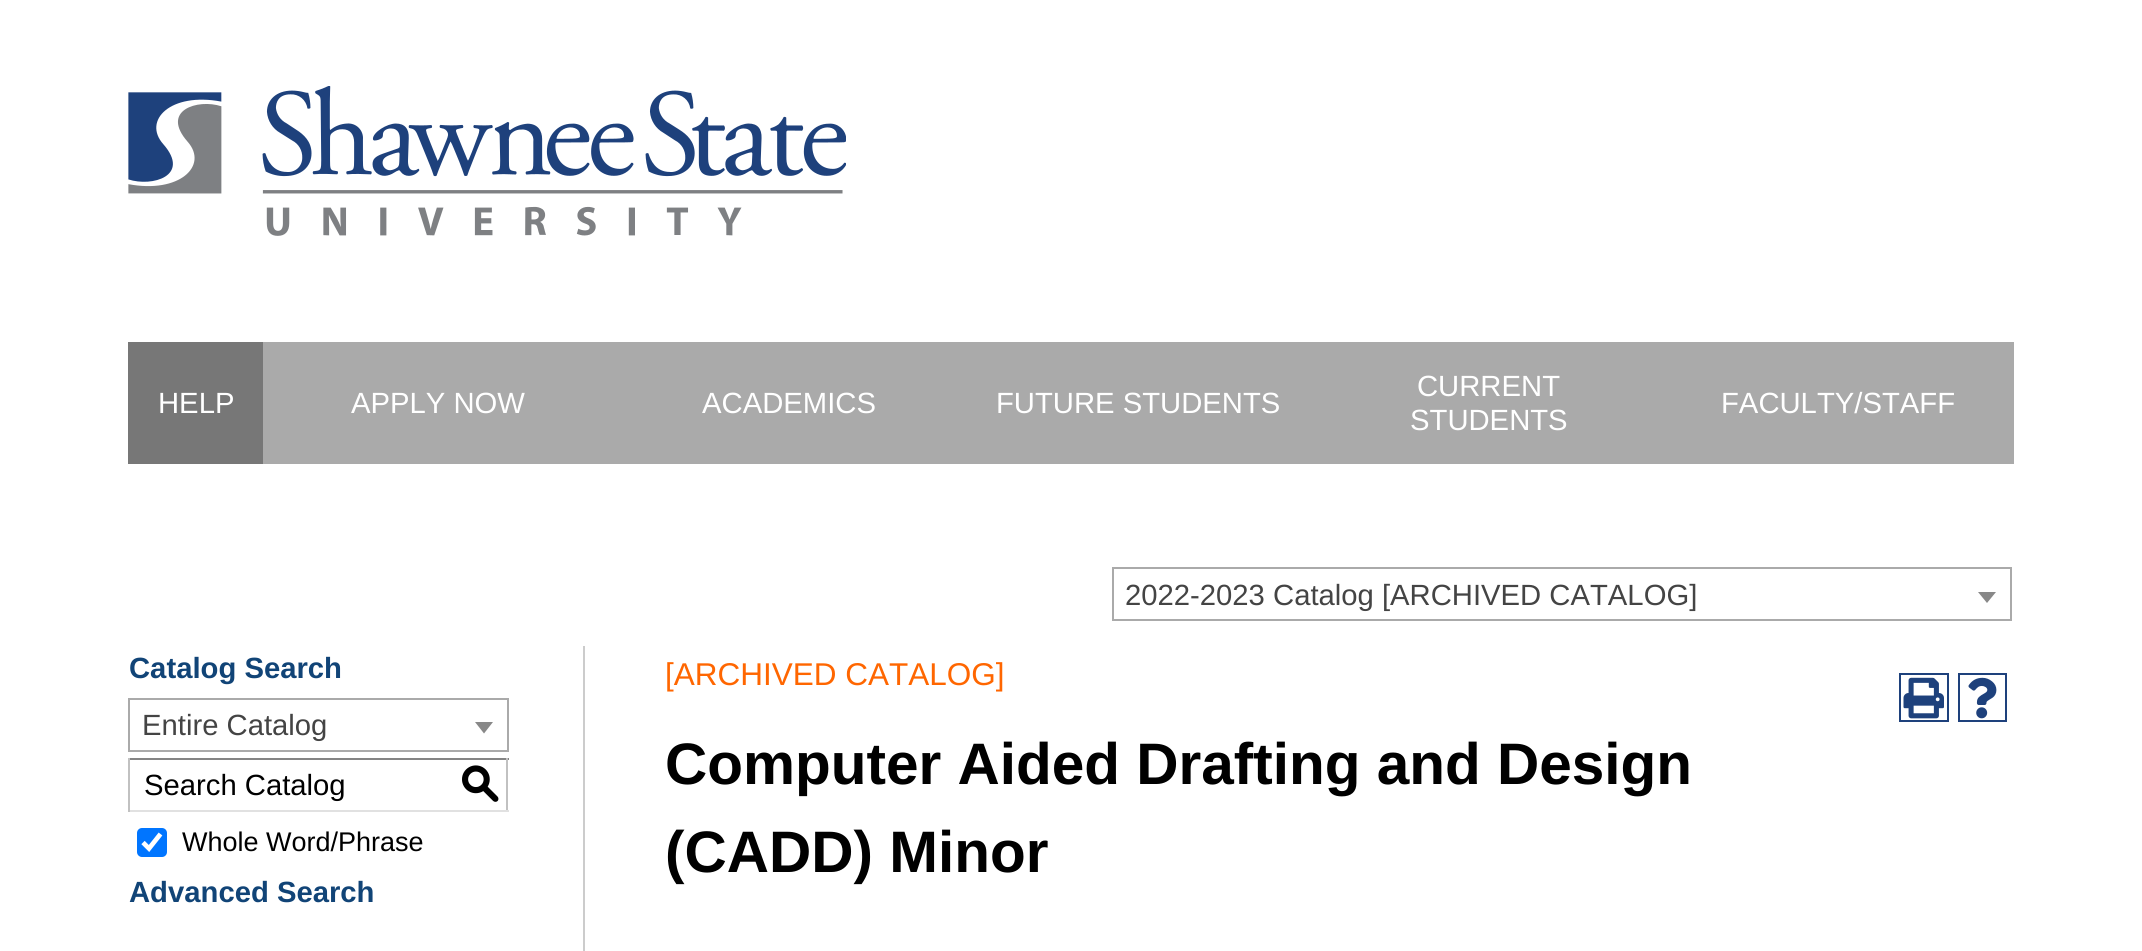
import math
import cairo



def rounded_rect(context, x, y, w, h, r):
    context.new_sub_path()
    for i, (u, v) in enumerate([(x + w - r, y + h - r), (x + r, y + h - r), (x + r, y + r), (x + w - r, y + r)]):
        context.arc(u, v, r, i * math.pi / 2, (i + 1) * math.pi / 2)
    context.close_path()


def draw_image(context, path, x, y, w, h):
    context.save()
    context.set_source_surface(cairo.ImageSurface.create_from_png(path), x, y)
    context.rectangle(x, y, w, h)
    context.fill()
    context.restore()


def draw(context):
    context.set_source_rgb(1, 1, 1)
    context.paint()
    draw_image(context, "images/1.png", 128, 86, 718, 150)
    context.set_source_rgb(170 / 255, 170 / 255, 170 / 255)
    context.rectangle(263, 342, 1751, 122)
    context.fill()
    context.set_source_rgb(119 / 255, 119 / 255, 119 / 255)
    context.rectangle(128, 342, 135, 122)
    context.fill()
    context.rectangle(1113, 568, 898, 52)
    context.set_source_rgb(170 / 255, 170 / 255, 170 / 255)
    context.stroke()
    context.set_source_rgb(136 / 255, 136 / 255, 136 / 255)
    context.new_path()
    context.move_to(1978, 592)
    context.line_to(1996, 592)
    context.line_to(1987, 603)
    context.close_path()
    context.fill()
    context.set_source_rgb(204 / 255, 204 / 255, 204 / 255)
    context.rectangle(583, 646, 2, 305)
    context.fill()
    context.rectangle(129, 699, 379, 52)
    context.set_source_rgb(170 / 255, 170 / 255, 170 / 255)
    context.stroke()
    context.set_source_rgb(136 / 255, 136 / 255, 136 / 255)
    context.new_path()
    context.move_to(475, 722)
    context.line_to(493, 722)
    context.line_to(484, 733.5)
    context.close_path()
    context.fill()
    context.set_source_rgb(132 / 255, 132 / 255, 132 / 255)
    context.rectangle(128, 758, 381, 2)
    context.fill()
    context.set_source_rgb(193 / 255, 193 / 255, 193 / 255)
    context.rectangle(506, 758, 2, 54)
    context.fill()
    context.set_source_rgb(225 / 255, 225 / 255, 225 / 255)
    context.rectangle(128, 810, 381, 2)
    context.fill()
    context.set_source_rgb(193 / 255, 193 / 255, 193 / 255)
    context.rectangle(128, 758, 2, 54)
    context.fill()
    context.set_source_rgb(0, 117 / 255, 1)
    rounded_rect(context, 137, 828, 30, 29, 5)
    context.fill()
    context.new_path()
    context.move_to(143, 842.5)
    context.line_to(149, 848.5)
    context.line_to(160.5, 834)
    context.set_source_rgb(1, 1, 1)
    context.set_line_width(4.7)
    context.stroke()
    context.rectangle(1900, 674, 48, 47)
    context.set_source_rgb(30 / 255, 65 / 255, 124 / 255)
    context.set_line_width(2)
    context.stroke()
    draw_image(context, "images/2.png", 1903, 677, 41, 42)
    context.rectangle(1959, 674, 47, 47)
    context.stroke()
    draw_image(context, "images/3.png", 1968, 677, 29, 42)
    context.select_font_face("Liberation Sans")
    context.set_font_size(29.25)
    context.set_source_rgb(1, 1, 1)
    context.move_to(158, 413)
    context.show_text("HELP")
    context.move_to(351, 413)
    context.show_text("APPLY NOW")
    context.move_to(702, 413)
    context.show_text("ACADEMICS")
    context.move_to(996, 413)
    context.show_text("FUTURE STUDENTS")
    context.move_to(1417, 396)
    context.show_text("CURRENT")
    context.move_to(1410, 430)
    context.show_text("STUDENTS")
    context.move_to(1721, 413)
    context.show_text("FACULTY/STAFF")
    context.set_source_rgb(68 / 255, 68 / 255, 68 / 255)
    context.move_to(1125, 605)
    context.show_text("2022-2023 Catalog [ARCHIVED CATALOG]")
    context.select_font_face("Liberation Sans", cairo.FontSlant.NORMAL, cairo.FontWeight.BOLD)
    context.set_source_rgb(17 / 255, 68 / 255, 119 / 255)
    context.move_to(129, 678)
    context.show_text("Catalog Search")
    context.select_font_face("Liberation Sans")
    context.set_source_rgb(68 / 255, 68 / 255, 68 / 255)
    context.move_to(142, 735)
    context.show_text("Entire Catalog")
    context.set_source_rgb(0, 0, 0)
    context.move_to(144, 795)
    context.show_text("Search Catalog")
    context.select_font_face("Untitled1 Medium")
    context.set_font_size(40)
    context.move_to(460, 796)
    context.show_text("S")
    context.select_font_face("Liberation Sans")
    context.set_font_size(27)
    context.move_to(182, 851)
    context.show_text("Whole Word/Phrase")
    context.select_font_face("Liberation Sans", cairo.FontSlant.NORMAL, cairo.FontWeight.BOLD)
    context.set_font_size(29.25)
    context.set_source_rgb(17 / 255, 68 / 255, 119 / 255)
    context.move_to(129, 902)
    context.show_text("Advanced Search")
    context.select_font_face("Liberation Sans")
    context.set_font_size(31.5)
    context.set_source_rgb(1, 102 / 255, 0)
    context.move_to(665, 685)
    context.show_text("[ARCHIVED CATALOG]")
    context.select_font_face("Liberation Sans", cairo.FontSlant.NORMAL, cairo.FontWeight.BOLD)
    context.set_font_size(58.5)
    context.set_source_rgb(0, 0, 0)
    context.move_to(665, 784)
    context.show_text("Computer Aided Drafting and Design")
    context.move_to(665, 872)
    context.show_text("(CADD) Minor")


surface = cairo.ImageSurface(cairo.Format.RGB24, 2142, 951)
context = cairo.Context(surface)
options = cairo.FontOptions()
options.set_hint_metrics(cairo.HintMetrics.OFF)
options.set_hint_style(cairo.HintStyle.NONE)
context.set_font_options(options)
context.set_miter_limit(4)
draw(context)
surface.write_to_png("out.png")
